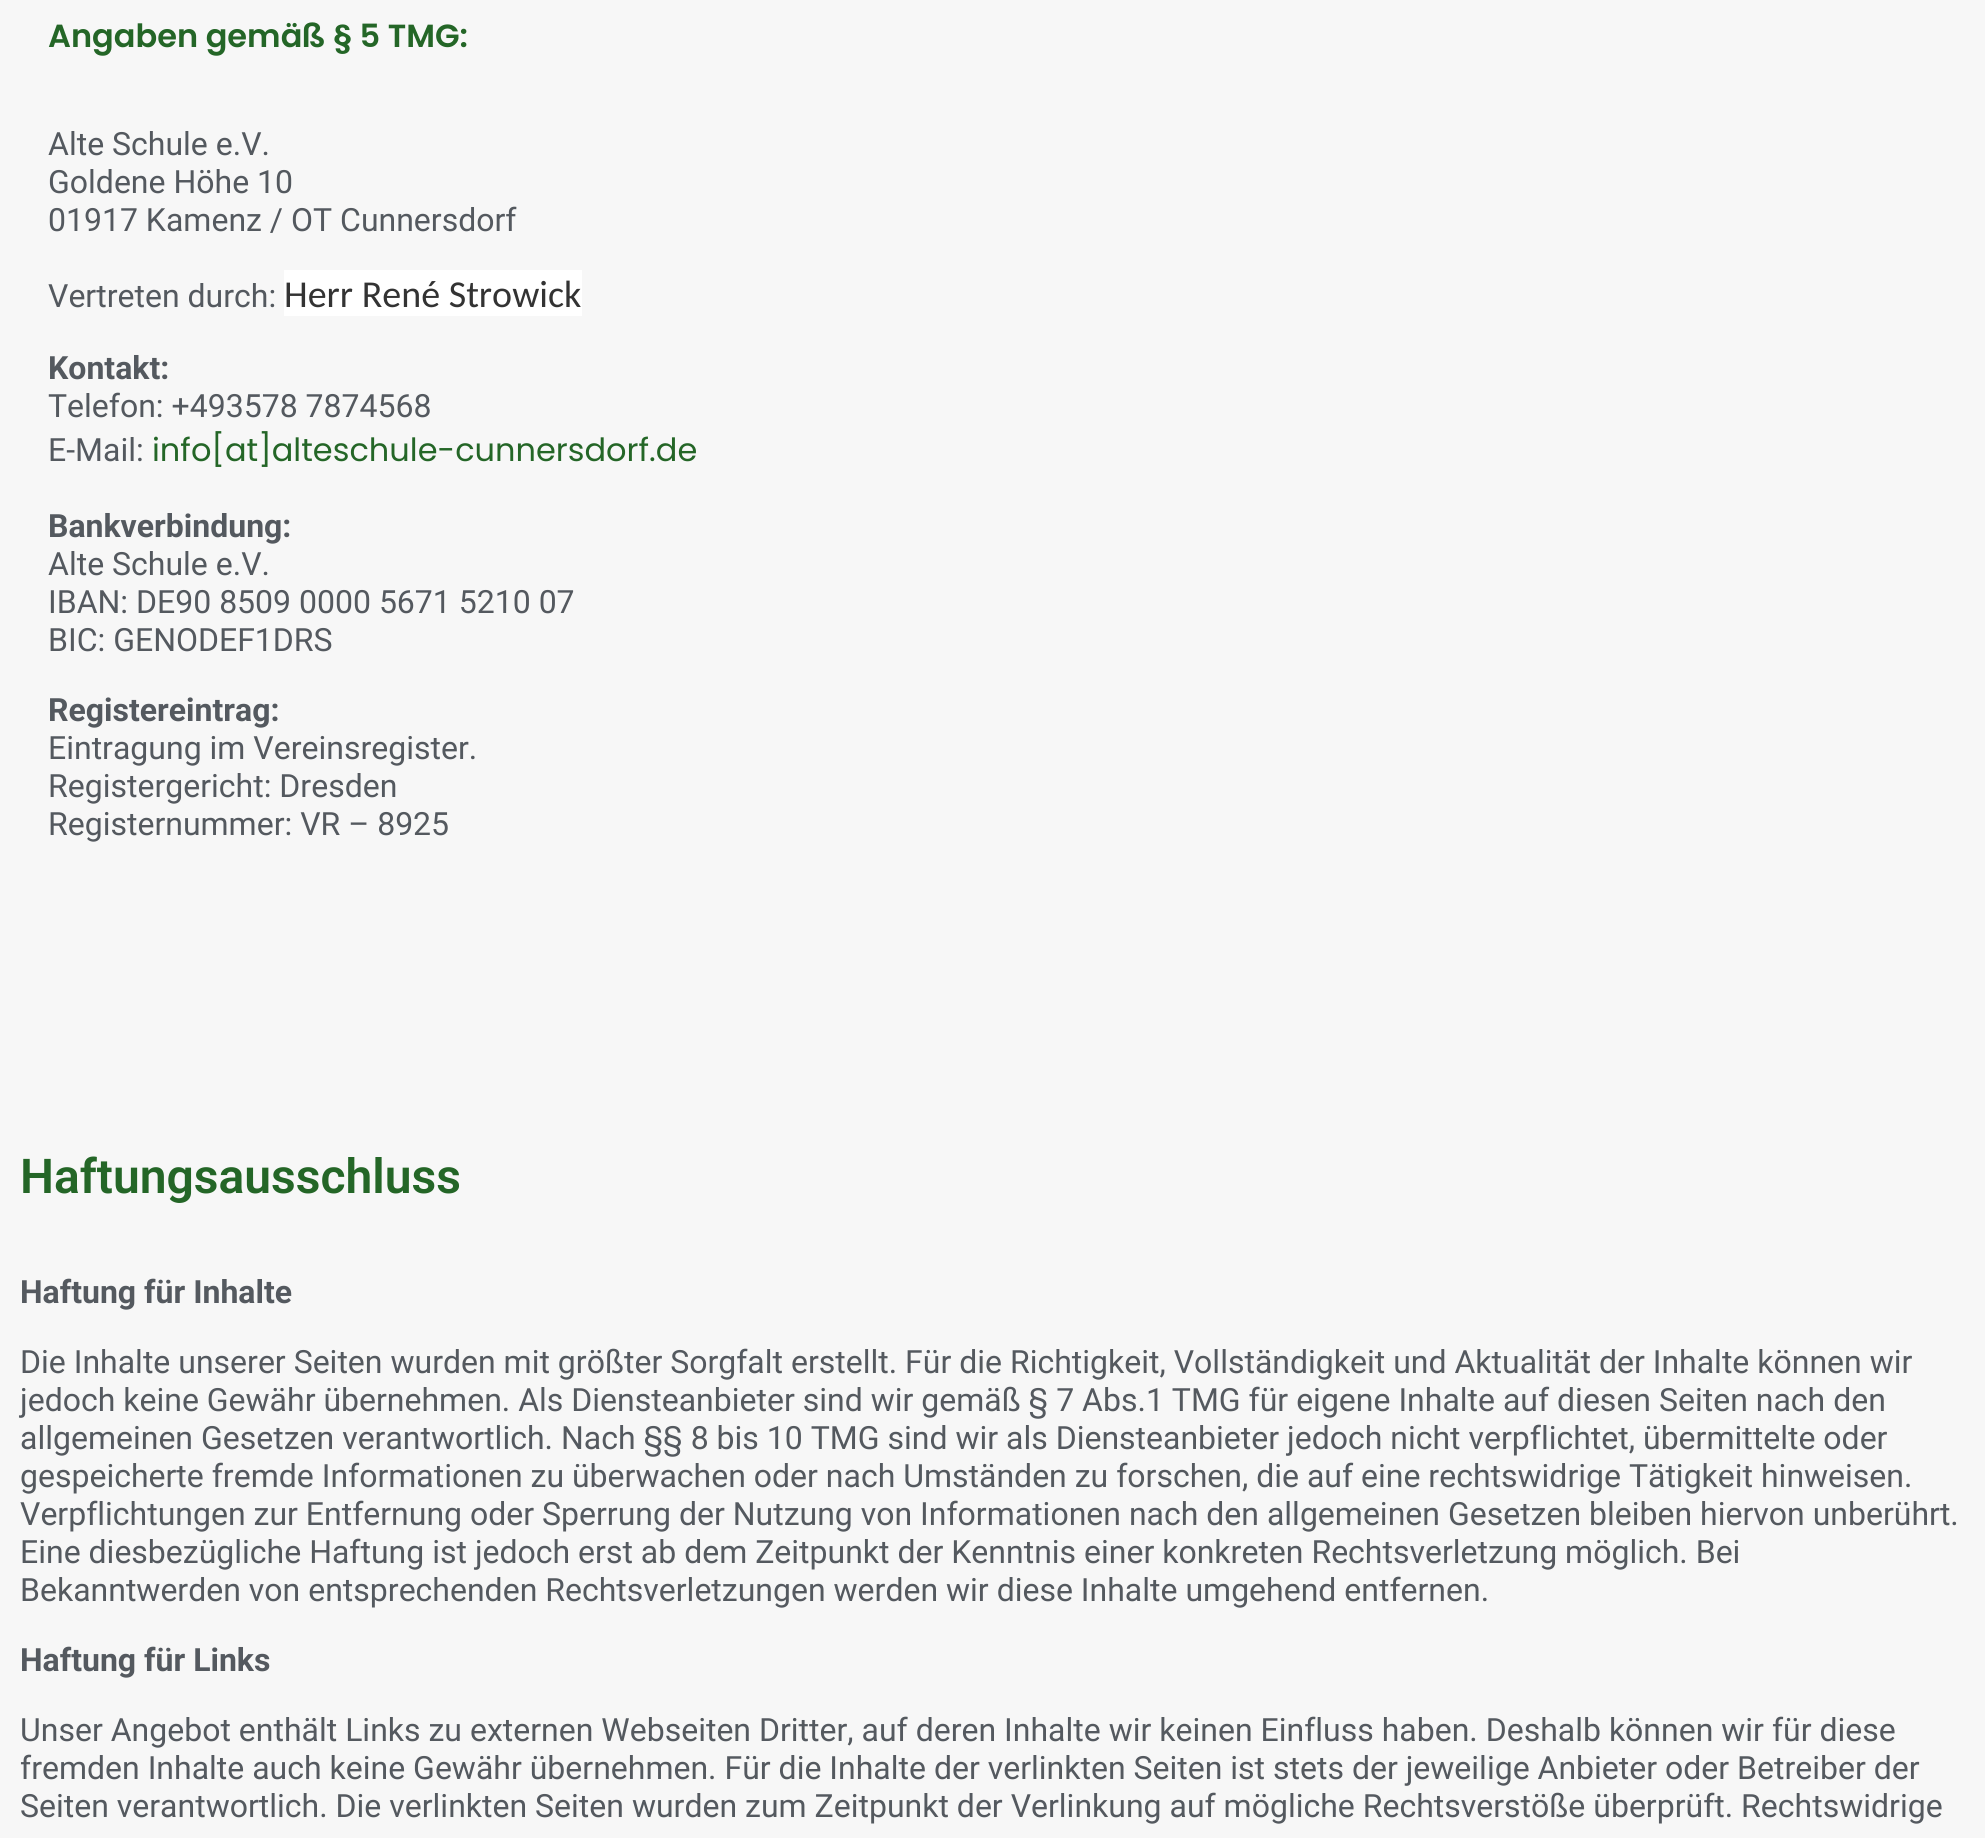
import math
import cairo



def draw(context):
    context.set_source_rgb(247 / 255, 247 / 255, 247 / 255)
    context.paint()
    context.set_source_rgb(1, 1, 1)
    context.rectangle(284, 270, 298, 46)
    context.fill()
    context.select_font_face("Poppins SemiBold")
    context.set_font_size(32)
    context.set_source_rgb(36 / 255, 102 / 255, 39 / 255)
    context.move_to(48, 47)
    context.show_text("Angaben gemäß § 5 TMG:")
    context.select_font_face("Roboto")
    context.set_source_rgb(84 / 255, 89 / 255, 95 / 255)
    context.move_to(48, 155)
    context.show_text("Alte Schule e.V.")
    context.move_to(48, 193)
    context.show_text("Goldene Höhe 10")
    context.move_to(48, 231)
    context.show_text("01917 Kamenz / OT Cunnersdorf")
    context.move_to(48, 307)
    context.show_text("Vertreten durch:")
    context.select_font_face("Carlito")
    context.set_font_size(38)
    context.set_source_rgb(51 / 255, 51 / 255, 51 / 255)
    context.move_to(284, 307)
    context.show_text("Herr René Strowick")
    context.select_font_face("Roboto", cairo.FontSlant.NORMAL, cairo.FontWeight.BOLD)
    context.set_font_size(32)
    context.set_source_rgb(84 / 255, 89 / 255, 95 / 255)
    context.move_to(48, 379)
    context.show_text("Kontakt:")
    context.select_font_face("Roboto")
    context.move_to(48, 417)
    context.show_text("Telefon: +493578 7874568")
    context.move_to(48, 461)
    context.show_text("E-Mail:")
    context.select_font_face("Poppins")
    context.set_source_rgb(36 / 255, 102 / 255, 39 / 255)
    context.move_to(152, 461)
    context.show_text("info[at]alteschule-cunnersdorf.de")
    context.select_font_face("Roboto", cairo.FontSlant.NORMAL, cairo.FontWeight.BOLD)
    context.set_source_rgb(84 / 255, 89 / 255, 95 / 255)
    context.move_to(48, 537)
    context.show_text("Bankverbindung:")
    context.select_font_face("Roboto")
    context.move_to(48, 575)
    context.show_text("Alte Schule e.V.")
    context.move_to(48, 613)
    context.show_text("IBAN: DE90 8509 0000 5671 5210 07")
    context.move_to(48, 651)
    context.show_text("BIC: GENODEF1DRS")
    context.select_font_face("Roboto", cairo.FontSlant.NORMAL, cairo.FontWeight.BOLD)
    context.move_to(48, 721)
    context.show_text("Registereintrag:")
    context.select_font_face("Roboto")
    context.move_to(48, 759)
    context.show_text("Eintragung im Vereinsregister.")
    context.move_to(48, 797)
    context.show_text("Registergericht: Dresden")
    context.move_to(48, 835)
    context.show_text("Registernummer: VR – 8925")
    context.select_font_face("Roboto SemiBold")
    context.set_font_size(48)
    context.set_source_rgb(36 / 255, 102 / 255, 39 / 255)
    context.move_to(20, 1193)
    context.show_text("Haftungsausschluss")
    context.select_font_face("Roboto", cairo.FontSlant.NORMAL, cairo.FontWeight.BOLD)
    context.set_font_size(32)
    context.set_source_rgb(84 / 255, 89 / 255, 95 / 255)
    context.move_to(20, 1303)
    context.show_text("Haftung für Inhalte")
    context.select_font_face("Roboto")
    context.move_to(20, 1373)
    context.show_text("Die Inhalte unserer Seiten wurden mit größter Sorgfalt erstellt. Für die Richtigkeit, Vollständigkeit und Aktualität der Inhalte können wir")
    context.move_to(20, 1411)
    context.show_text("jedoch keine Gewähr übernehmen. Als Diensteanbieter sind wir gemäß § 7 Abs.1 TMG für eigene Inhalte auf diesen Seiten nach den")
    context.move_to(20, 1449)
    context.show_text("allgemeinen Gesetzen verantwortlich. Nach §§ 8 bis 10 TMG sind wir als Diensteanbieter jedoch nicht verpflichtet, übermittelte oder")
    context.move_to(20, 1487)
    context.show_text("gespeicherte fremde Informationen zu überwachen oder nach Umständen zu forschen, die auf eine rechtswidrige Tätigkeit hinweisen.")
    context.move_to(20, 1525)
    context.show_text("Verpflichtungen zur Entfernung oder Sperrung der Nutzung von Informationen nach den allgemeinen Gesetzen bleiben hiervon unberührt.")
    context.move_to(20, 1563)
    context.show_text("Eine diesbezügliche Haftung ist jedoch erst ab dem Zeitpunkt der Kenntnis einer konkreten Rechtsverletzung möglich. Bei")
    context.move_to(20, 1601)
    context.show_text("Bekanntwerden von entsprechenden Rechtsverletzungen werden wir diese Inhalte umgehend entfernen.")
    context.select_font_face("Roboto", cairo.FontSlant.NORMAL, cairo.FontWeight.BOLD)
    context.move_to(20, 1671)
    context.show_text("Haftung für Links")
    context.select_font_face("Roboto")
    context.move_to(20, 1741)
    context.show_text("Unser Angebot enthält Links zu externen Webseiten Dritter, auf deren Inhalte wir keinen Einfluss haben. Deshalb können wir für diese")
    context.move_to(20, 1779)
    context.show_text("fremden Inhalte auch keine Gewähr übernehmen. Für die Inhalte der verlinkten Seiten ist stets der jeweilige Anbieter oder Betreiber der")
    context.move_to(20, 1817)
    context.show_text("Seiten verantwortlich. Die verlinkten Seiten wurden zum Zeitpunkt der Verlinkung auf mögliche Rechtsverstöße überprüft. Rechtswidrige")


surface = cairo.ImageSurface(cairo.Format.RGB24, 1985, 1838)
context = cairo.Context(surface)
options = cairo.FontOptions()
options.set_hint_metrics(cairo.HintMetrics.OFF)
options.set_hint_style(cairo.HintStyle.NONE)
context.set_font_options(options)
context.set_miter_limit(4)
draw(context)
surface.write_to_png("out.png")
